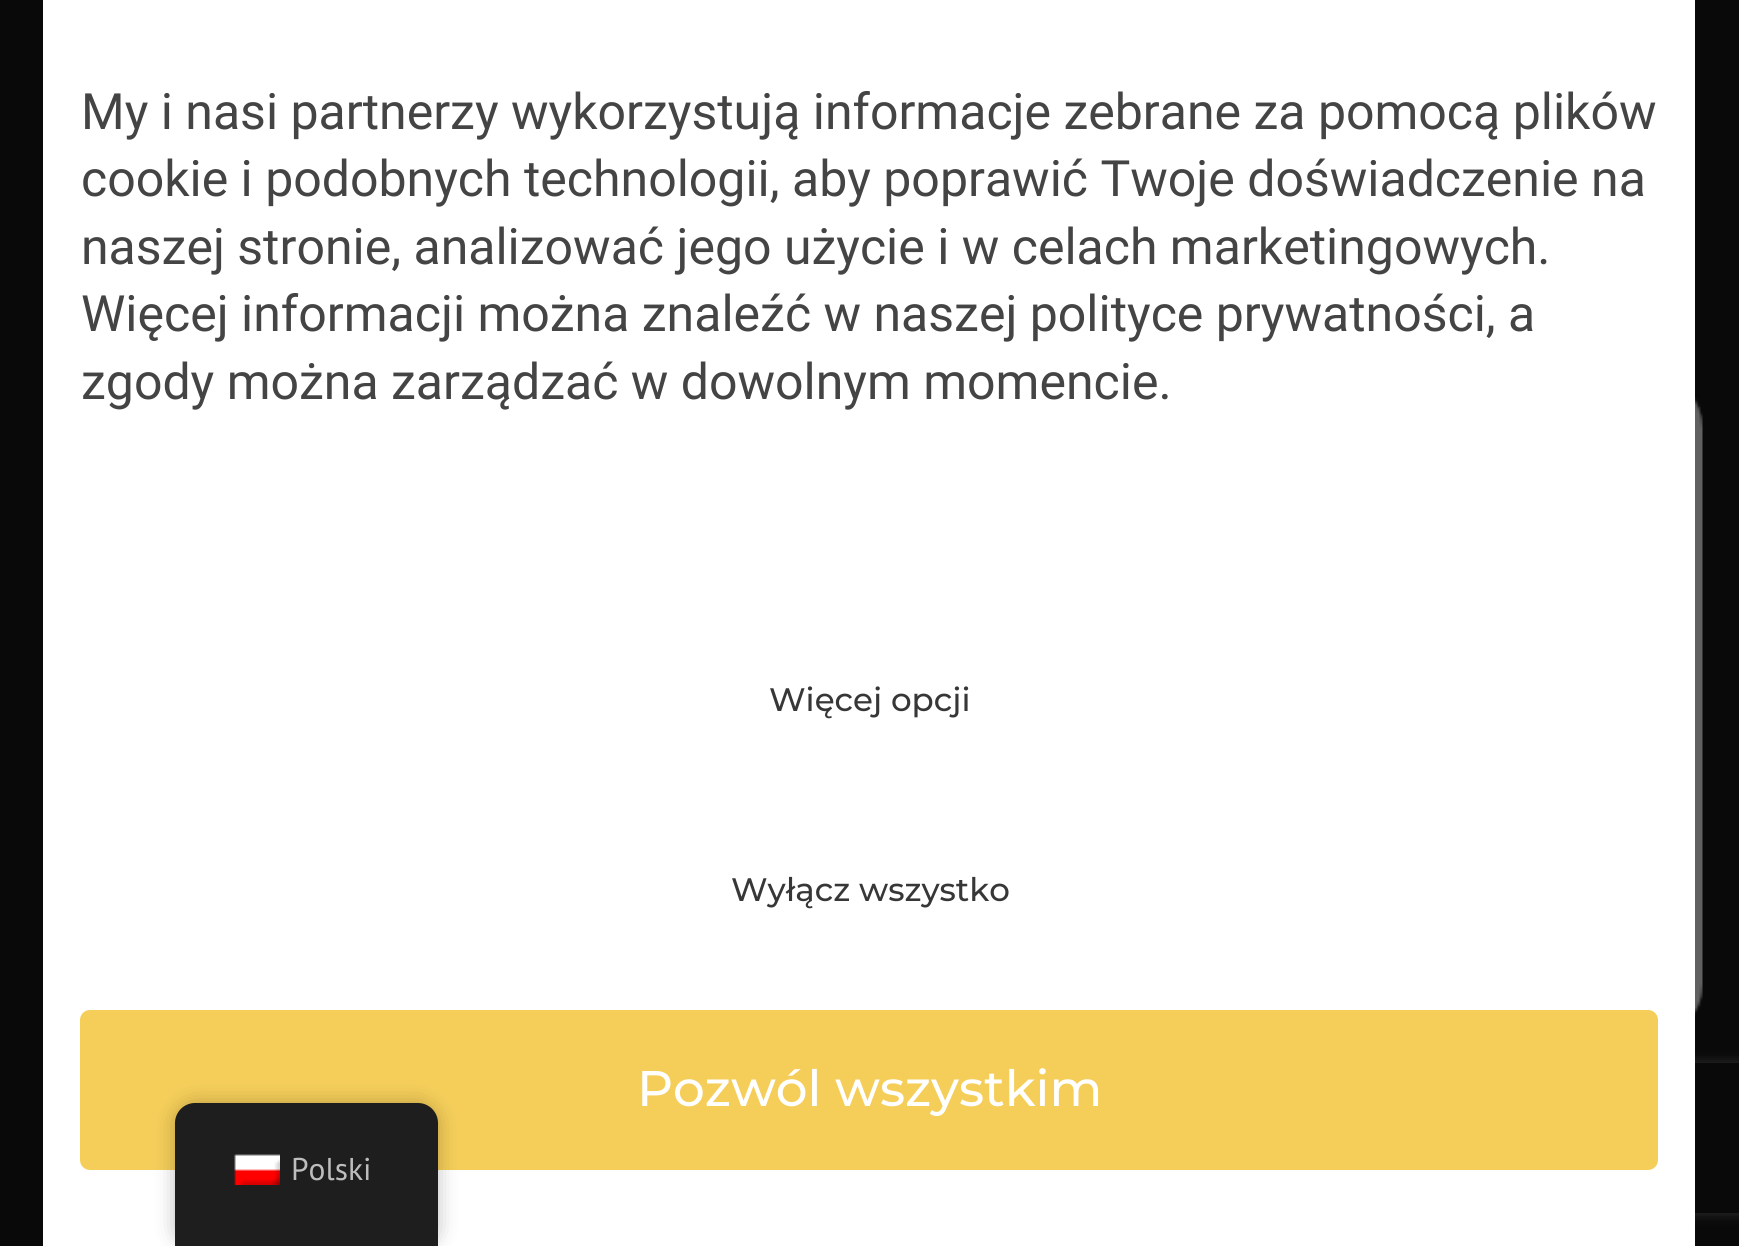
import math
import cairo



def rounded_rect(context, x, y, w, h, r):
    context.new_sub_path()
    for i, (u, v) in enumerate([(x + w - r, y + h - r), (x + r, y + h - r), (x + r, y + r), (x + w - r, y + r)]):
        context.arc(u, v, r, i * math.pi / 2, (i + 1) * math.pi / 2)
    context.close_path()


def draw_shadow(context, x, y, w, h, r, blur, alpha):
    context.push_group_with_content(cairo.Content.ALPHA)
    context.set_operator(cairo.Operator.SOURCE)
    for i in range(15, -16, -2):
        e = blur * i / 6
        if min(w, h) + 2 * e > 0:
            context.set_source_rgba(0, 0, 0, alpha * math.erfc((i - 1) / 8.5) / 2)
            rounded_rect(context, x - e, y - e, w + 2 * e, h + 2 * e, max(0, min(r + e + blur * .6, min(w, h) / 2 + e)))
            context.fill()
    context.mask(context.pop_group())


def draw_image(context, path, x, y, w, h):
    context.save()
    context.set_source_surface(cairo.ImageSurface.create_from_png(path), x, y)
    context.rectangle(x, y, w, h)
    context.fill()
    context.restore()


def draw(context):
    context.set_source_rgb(9 / 255, 9 / 255, 9 / 255)
    context.paint()
    context.save()
    context.set_fill_rule(cairo.FillRule.EVEN_ODD)
    context.new_path()
    context.move_to(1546, 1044)
    context.line_to(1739, 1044)
    context.line_to(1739, 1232)
    context.line_to(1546, 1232)
    context.close_path()
    context.move_to(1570, 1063)
    context.line_to(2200, 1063)
    context.curve_to(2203, 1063, 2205, 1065, 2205, 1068)
    context.line_to(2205, 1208)
    context.curve_to(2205, 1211, 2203, 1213, 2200, 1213)
    context.line_to(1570, 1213)
    context.curve_to(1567, 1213, 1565, 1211, 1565, 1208)
    context.line_to(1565, 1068)
    context.curve_to(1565, 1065, 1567, 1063, 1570, 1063)
    context.close_path()
    context.clip()
    context.set_source_rgb(48 / 255, 48 / 255, 48 / 255)
    draw_shadow(context, 1565, 1063, 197, 150, 5, 6, 1)
    context.restore()
    context.set_source_rgb(1, 1, 1)
    context.rectangle(43, 0, 1652, 1246)
    context.fill()
    context.set_source_rgb(245 / 255, 206 / 255, 90 / 255)
    rounded_rect(context, 80, 1010, 1578, 160, 10)
    context.fill()
    draw_image(context, "images/1.png", 1695, 396, 8, 621)
    context.set_source_rgb(0, 0, 0)
    draw_shadow(context, 175, 1103, 263, 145, 20, 10, 0.25)
    context.set_source_rgb(30 / 255, 30 / 255, 30 / 255)
    context.new_path()
    context.move_to(195, 1103)
    context.line_to(418, 1103)
    context.curve_to(429, 1103, 438, 1112, 438, 1123)
    context.line_to(438, 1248)
    context.line_to(175, 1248)
    context.line_to(175, 1123)
    context.curve_to(175, 1112, 184, 1103, 195, 1103)
    context.close_path()
    context.fill()
    draw_image(context, "images/2.png", 234, 1154, 46, 31)
    context.select_font_face("Roboto")
    context.set_font_size(50)
    context.set_source_rgb(68 / 255, 68 / 255, 68 / 255)
    context.move_to(81, 129)
    context.show_text("My i nasi partnerzy wykorzystują informacje zebrane za pomocą plików")
    context.move_to(81, 196)
    context.show_text("cookie i podobnych technologii, aby poprawić Twoje doświadczenie na")
    context.move_to(81, 264)
    context.show_text("naszej stronie, analizować jego użycie i w celach marketingowych.")
    context.move_to(81, 331)
    context.show_text("Więcej informacji można znaleźć w naszej polityce prywatności, a")
    context.move_to(81, 399)
    context.show_text("zgody można zarządzać w dowolnym momencie.")
    context.select_font_face("Montserrat Medium")
    context.set_font_size(32.5)
    context.set_source_rgb(55 / 255, 55 / 255, 55 / 255)
    context.move_to(769, 711)
    context.show_text("Więcej opcji")
    context.move_to(731, 901)
    context.show_text("Wyłącz wszystko")
    context.set_font_size(50)
    context.set_source_rgb(1, 1, 1)
    context.move_to(637, 1106)
    context.show_text("Pozwól wszystkim")
    context.select_font_face("PT Sans")
    context.set_font_size(31.5)
    context.set_source_rgb(189 / 255, 189 / 255, 189 / 255)
    context.move_to(291, 1180)
    context.show_text("Polski")


surface = cairo.ImageSurface(cairo.Format.RGB24, 1739, 1246)
context = cairo.Context(surface)
options = cairo.FontOptions()
options.set_hint_metrics(cairo.HintMetrics.OFF)
options.set_hint_style(cairo.HintStyle.NONE)
context.set_font_options(options)
context.set_miter_limit(4)
draw(context)
surface.write_to_png("out.png")
